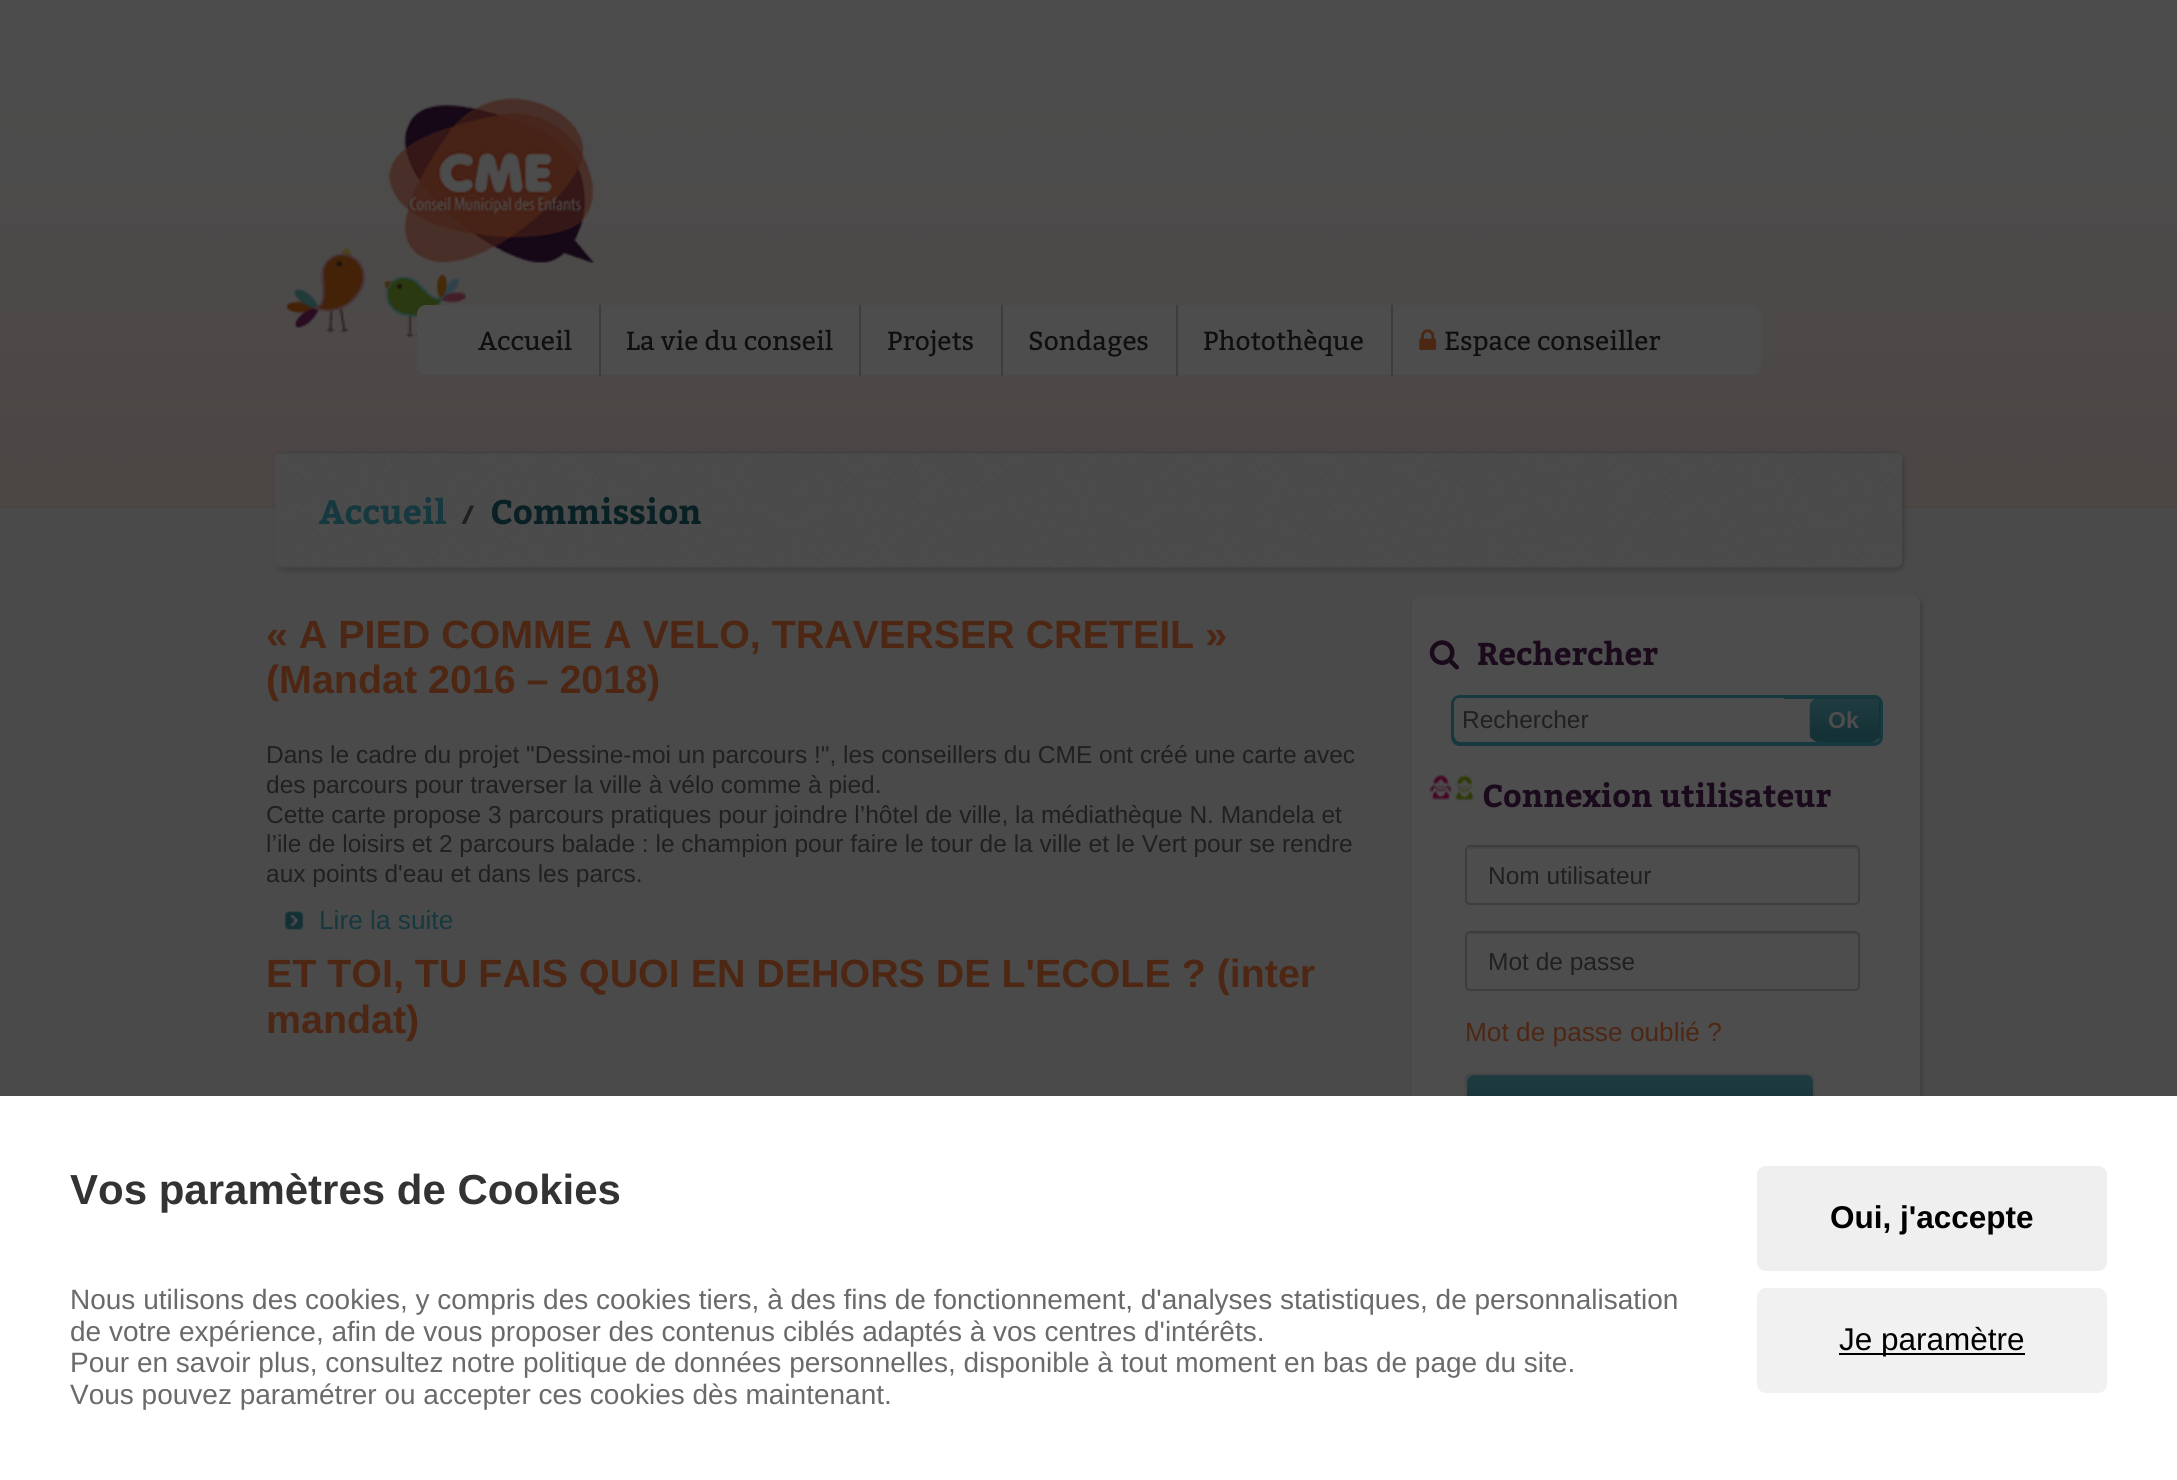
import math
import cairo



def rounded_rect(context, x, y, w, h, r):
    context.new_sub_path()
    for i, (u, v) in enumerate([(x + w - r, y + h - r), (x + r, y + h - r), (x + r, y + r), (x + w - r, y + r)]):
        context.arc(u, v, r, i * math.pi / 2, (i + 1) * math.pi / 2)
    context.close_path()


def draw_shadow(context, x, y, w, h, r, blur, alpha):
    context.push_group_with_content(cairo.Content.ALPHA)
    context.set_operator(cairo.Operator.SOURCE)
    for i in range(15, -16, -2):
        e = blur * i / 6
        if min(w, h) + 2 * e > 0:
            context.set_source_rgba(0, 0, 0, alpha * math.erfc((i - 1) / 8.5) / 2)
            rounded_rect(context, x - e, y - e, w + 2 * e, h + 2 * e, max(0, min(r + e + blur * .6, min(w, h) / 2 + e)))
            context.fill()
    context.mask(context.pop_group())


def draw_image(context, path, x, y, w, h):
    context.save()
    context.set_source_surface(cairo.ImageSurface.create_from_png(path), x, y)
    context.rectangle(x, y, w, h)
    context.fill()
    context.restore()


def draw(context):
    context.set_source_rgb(74 / 255, 74 / 255, 74 / 255)
    context.paint()
    context.set_source_rgb(74 / 255, 61 / 255, 57 / 255)
    context.rectangle(0, 507, 2177, 1)
    context.fill()
    draw_image(context, "images/1.png", 0, 0, 2177, 508)
    draw_image(context, "images/3.png", 388, 97, 206, 166)
    draw_image(context, "images/2.png", 286, 248, 180, 91)
    context.set_source_rgb(77 / 255, 77 / 255, 77 / 255)
    rounded_rect(context, 417, 305, 1344, 70, 9)
    context.fill()
    context.set_source_rgb(61 / 255, 61 / 255, 61 / 255)
    context.rectangle(599, 305, 2, 71)
    context.fill()
    context.rectangle(859, 305, 2, 71)
    context.fill()
    context.rectangle(1001, 305, 2, 71)
    context.fill()
    context.rectangle(1176, 305, 2, 71)
    context.fill()
    context.rectangle(1391, 305, 2, 71)
    context.fill()
    draw_image(context, "images/4.png", 1419, 329, 18, 21)
    context.set_source_rgb(60 / 255, 60 / 255, 60 / 255)
    draw_shadow(context, 277, 453, 1627, 118, 9, 2.5, 1)
    draw_image(context, "images/5.png", 275, 452, 1627, 117)
    draw_image(context, "images/6.png", 284, 911, 20, 19)
    context.save()
    context.rectangle(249, 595, 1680, 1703)
    context.clip()
    draw_shadow(context, 1414, 597, 508, 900, 9, 2.5, 1)
    context.restore()
    context.set_source_rgb(77 / 255, 77 / 255, 77 / 255)
    rounded_rect(context, 1412, 595, 508, 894, 9)
    context.fill()
    draw_image(context, "images/7.png", 1429, 640, 30, 30)
    rounded_rect(context, 1453, 697, 428, 47, 7)
    context.set_source_rgb(22 / 255, 56 / 255, 63 / 255)
    context.set_line_width(4)
    context.stroke()
    context.set_source_rgb(77 / 255, 77 / 255, 77 / 255)
    rounded_rect(context, 1454, 698, 333, 42, 5)
    context.fill()
    context.set_source_rgb(20 / 255, 49 / 255, 54 / 255)
    rounded_rect(context, 1810, 698, 70, 44, 9)
    context.fill()
    draw_image(context, "images/8.png", 1809, 698, 70, 41)
    draw_image(context, "images/9.png", 1429, 774, 45, 27)
    context.set_source_rgb(71 / 255, 71 / 255, 71 / 255)
    context.new_path()
    context.move_to(1470, 849)
    context.line_to(1855, 849)
    context.curve_to(1857, 849, 1858, 850, 1858, 852)
    context.line_to(1858, 902)
    context.curve_to(1859, 901, 1859, 900, 1859, 899)
    context.line_to(1859, 851)
    context.curve_to(1859, 849, 1857, 847, 1855, 847)
    context.line_to(1471, 847)
    context.curve_to(1469, 847, 1468, 848, 1467, 850)
    context.close_path()
    context.fill()
    rounded_rect(context, 1466, 846, 393, 58, 4)
    context.set_source_rgb(61 / 255, 61 / 255, 61 / 255)
    context.set_line_width(2)
    context.stroke()
    context.set_source_rgb(71 / 255, 71 / 255, 71 / 255)
    context.new_path()
    context.move_to(1470, 934)
    context.line_to(1855, 934)
    context.curve_to(1857, 934, 1858, 936, 1858, 938)
    context.line_to(1858, 988)
    context.curve_to(1859, 987, 1859, 986, 1859, 985)
    context.line_to(1859, 937)
    context.curve_to(1859, 935, 1857, 933, 1855, 933)
    context.line_to(1471, 933)
    context.curve_to(1470, 933, 1468, 934, 1468, 935)
    context.close_path()
    context.fill()
    rounded_rect(context, 1466, 932, 393, 58, 4)
    context.set_source_rgb(61 / 255, 61 / 255, 61 / 255)
    context.stroke()
    draw_image(context, "images/10.png", 1464, 1074, 351, 22)
    rounded_rect(context, 1466, 1074, 348, 45, 8)
    context.set_source_rgb(72 / 255, 72 / 255, 72 / 255)
    context.stroke()
    context.set_source_rgb(1, 1, 1)
    context.rectangle(0, 1096, 2177, 384)
    context.fill()
    context.set_source_rgb(239 / 255, 239 / 255, 239 / 255)
    rounded_rect(context, 1757, 1166, 350, 105, 9)
    context.fill()
    context.set_source_rgb(241 / 255, 241 / 255, 241 / 255)
    rounded_rect(context, 1757, 1288, 350, 105, 9)
    context.fill()
    context.set_source_rgb(0, 0, 0)
    context.rectangle(1839, 1353, 186, 2)
    context.fill()
    context.select_font_face("Bitter")
    context.set_font_size(26.25)
    context.set_source_rgb(15 / 255, 15 / 255, 15 / 255)
    context.move_to(478, 350)
    context.show_text("Accueil")
    context.move_to(626, 350)
    context.show_text("La vie du conseil")
    context.move_to(887, 350)
    context.show_text("Projets")
    context.move_to(1028, 350)
    context.show_text("Sondages")
    context.move_to(1203, 350)
    context.show_text("Photothèque")
    context.move_to(1444, 350)
    context.show_text("Espace conseiller")
    context.select_font_face("Bitter", cairo.FontSlant.NORMAL, cairo.FontWeight.BOLD)
    context.set_font_size(34)
    context.set_source_rgb(22 / 255, 56 / 255, 63 / 255)
    context.move_to(319, 524)
    context.show_text("Accueil")
    context.set_font_size(26.25)
    context.set_source_rgb(32 / 255, 32 / 255, 32 / 255)
    context.move_to(461, 524)
    context.show_text("/")
    context.set_font_size(34)
    context.set_source_rgb(9 / 255, 32 / 255, 36 / 255)
    context.move_to(490, 524)
    context.show_text("Commission")
    context.select_font_face("Liberation Sans", cairo.FontSlant.NORMAL, cairo.FontWeight.BOLD)
    context.set_font_size(39.4)
    context.set_source_rgb(77 / 255, 39 / 255, 19 / 255)
    context.move_to(266, 648)
    context.show_text("« A PIED COMME A VELO, TRAVERSER CRETEIL »")
    context.move_to(266, 693)
    context.show_text("(Mandat 2016 – 2018)")
    context.select_font_face("Liberation Sans")
    context.set_font_size(24.5)
    context.set_source_rgb(32 / 255, 32 / 255, 32 / 255)
    context.move_to(266, 763)
    context.show_text("Dans le cadre du projet \"Dessine-moi un parcours !\", les conseillers du CME ont créé une carte avec")
    context.move_to(266, 793)
    context.show_text("des parcours pour traverser la ville à vélo comme à pied.")
    context.move_to(266, 823)
    context.show_text("Cette carte propose 3 parcours pratiques pour joindre l’hôtel de ville, la médiathèque N. Mandela et")
    context.move_to(266, 852)
    context.show_text("l’ile de loisirs et 2 parcours balade : le champion pour faire le tour de la ville et le Vert pour se rendre")
    context.move_to(266, 882)
    context.show_text("aux points d'eau et dans les parcs.")
    context.set_font_size(26.25)
    context.set_source_rgb(22 / 255, 56 / 255, 63 / 255)
    context.move_to(319, 929)
    context.show_text("Lire la suite")
    context.select_font_face("Liberation Sans", cairo.FontSlant.NORMAL, cairo.FontWeight.BOLD)
    context.set_font_size(39.4)
    context.set_source_rgb(77 / 255, 39 / 255, 19 / 255)
    context.move_to(266, 987)
    context.show_text("ET TOI, TU FAIS QUOI EN DEHORS DE L'ECOLE ? (inter")
    context.move_to(266, 1033)
    context.show_text("mandat)")
    context.select_font_face("Bitter", cairo.FontSlant.NORMAL, cairo.FontWeight.BOLD)
    context.set_font_size(31.5)
    context.set_source_rgb(26 / 255, 10 / 255, 28 / 255)
    context.move_to(1477, 665)
    context.show_text("Rechercher")
    context.select_font_face("Liberation Sans")
    context.set_font_size(24.5)
    context.set_source_rgb(32 / 255, 32 / 255, 32 / 255)
    context.move_to(1462, 728)
    context.show_text("Rechercher")
    context.select_font_face("Liberation Sans", cairo.FontSlant.NORMAL, cairo.FontWeight.BOLD)
    context.set_font_size(23)
    context.set_source_rgb(77 / 255, 77 / 255, 77 / 255)
    context.move_to(1828, 728)
    context.show_text("Ok")
    context.select_font_face("Bitter", cairo.FontSlant.NORMAL, cairo.FontWeight.BOLD)
    context.set_font_size(31.5)
    context.set_source_rgb(26 / 255, 10 / 255, 28 / 255)
    context.move_to(1482, 807)
    context.show_text("Connexion utilisateur")
    context.select_font_face("Liberation Sans")
    context.set_font_size(24.5)
    context.set_source_rgb(32 / 255, 32 / 255, 32 / 255)
    context.move_to(1488, 884)
    context.show_text("Nom utilisateur")
    context.move_to(1488, 970)
    context.show_text("Mot de passe")
    context.set_font_size(26.25)
    context.set_source_rgb(77 / 255, 39 / 255, 19 / 255)
    context.move_to(1465, 1041)
    context.show_text("Mot de passe oublié ?")
    context.select_font_face("Liberation Sans", cairo.FontSlant.NORMAL, cairo.FontWeight.BOLD)
    context.set_font_size(42)
    context.set_source_rgb(51 / 255, 51 / 255, 51 / 255)
    context.move_to(70, 1204)
    context.show_text("Vos paramètres de Cookies")
    context.select_font_face("Liberation Sans")
    context.set_font_size(28)
    context.set_source_rgb(107 / 255, 106 / 255, 106 / 255)
    context.move_to(70, 1309)
    context.show_text("Nous utilisons des cookies, y compris des cookies tiers, à des fins de fonctionnement, d'analyses statistiques, de personnalisation")
    context.move_to(70, 1341)
    context.show_text("de votre expérience, afin de vous proposer des contenus ciblés adaptés à vos centres d'intérêts.")
    context.move_to(70, 1372)
    context.show_text("Pour en savoir plus, consultez notre politique de données personnelles, disponible à tout moment en bas de page du site.")
    context.move_to(70, 1404)
    context.show_text("Vous pouvez paramétrer ou accepter ces cookies dès maintenant.")
    context.select_font_face("Liberation Sans", cairo.FontSlant.NORMAL, cairo.FontWeight.BOLD)
    context.set_font_size(31.5)
    context.set_source_rgb(0, 0, 0)
    context.move_to(1830, 1228)
    context.show_text("Oui, j'accepte")
    context.select_font_face("Liberation Sans")
    context.move_to(1839, 1350)
    context.show_text("Je paramètre")


surface = cairo.ImageSurface(cairo.Format.RGB24, 2177, 1480)
context = cairo.Context(surface)
options = cairo.FontOptions()
options.set_hint_metrics(cairo.HintMetrics.OFF)
options.set_hint_style(cairo.HintStyle.NONE)
context.set_font_options(options)
context.set_miter_limit(4)
draw(context)
surface.write_to_png("out.png")
